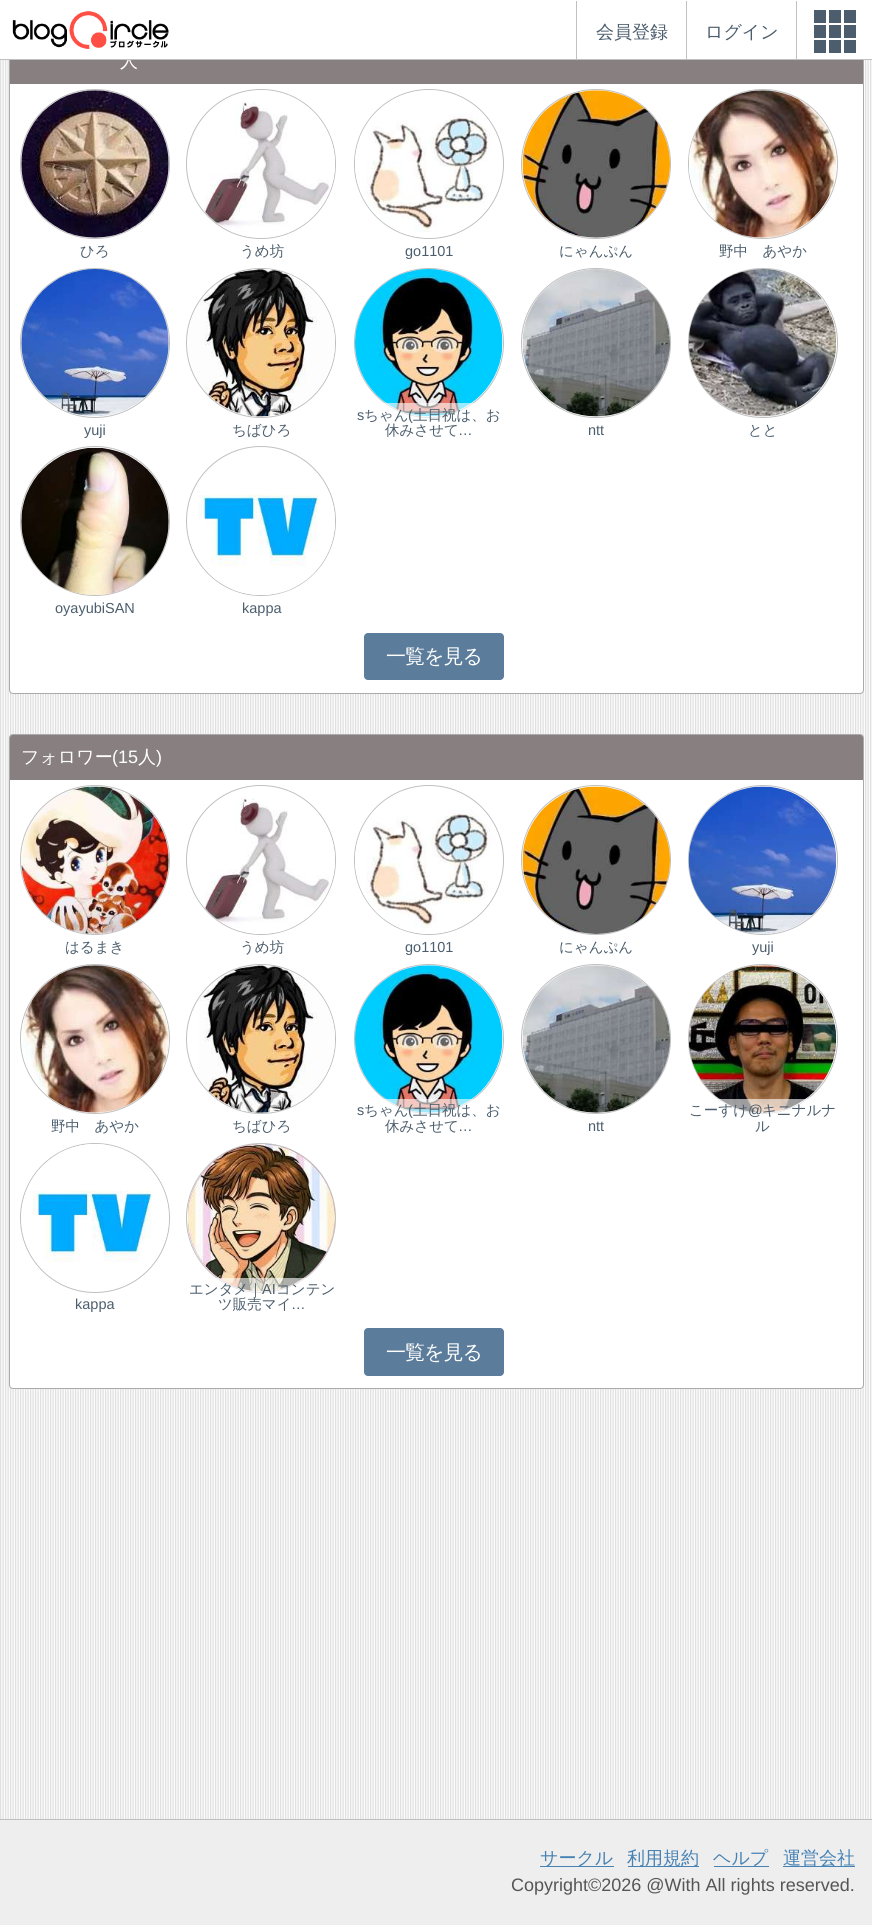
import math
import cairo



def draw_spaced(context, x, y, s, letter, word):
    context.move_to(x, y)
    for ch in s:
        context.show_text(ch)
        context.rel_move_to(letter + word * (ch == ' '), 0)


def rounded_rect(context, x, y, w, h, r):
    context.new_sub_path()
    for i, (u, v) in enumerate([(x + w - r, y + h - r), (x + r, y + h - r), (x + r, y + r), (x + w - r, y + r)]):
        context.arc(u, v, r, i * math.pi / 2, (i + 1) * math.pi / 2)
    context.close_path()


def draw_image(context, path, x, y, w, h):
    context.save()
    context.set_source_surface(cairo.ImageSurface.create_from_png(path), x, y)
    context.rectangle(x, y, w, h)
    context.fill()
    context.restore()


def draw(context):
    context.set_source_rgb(1, 1, 1)
    context.paint()
    draw_image(context, "images/1.png", 0, 60, 872, 1759)
    context.set_source_rgb(1, 1, 1)
    rounded_rect(context, 9.5, 38.5, 854, 655, 3.5)
    context.fill_preserve()
    context.set_source_rgb(170 / 255, 170 / 255, 170 / 255)
    context.set_line_width(1)
    context.stroke()
    context.set_source_rgb(1, 1, 1)
    context.rectangle(9, 38, 855, 21)
    context.fill()
    draw_image(context, "images/2.png", 12, 11, 157, 38)
    context.set_source_rgb(192 / 255, 192 / 255, 192 / 255)
    context.rectangle(576, 1, 1, 58)
    context.fill()
    context.rectangle(686, 1, 1, 58)
    context.fill()
    context.rectangle(796, 1, 1, 58)
    context.fill()
    context.set_source_rgb(76 / 255, 94 / 255, 109 / 255)
    context.rectangle(814, 10, 42, 13)
    context.fill()
    context.set_source_rgb(1, 1, 1)
    context.rectangle(841, 10, 3, 13)
    context.fill()
    context.rectangle(826, 10, 3, 13)
    context.fill()
    context.set_source_rgb(76 / 255, 94 / 255, 109 / 255)
    context.rectangle(814, 25, 42, 13)
    context.fill()
    context.set_source_rgb(1, 1, 1)
    context.rectangle(841, 25, 3, 13)
    context.fill()
    context.rectangle(826, 25, 3, 13)
    context.fill()
    context.set_source_rgb(76 / 255, 94 / 255, 109 / 255)
    context.rectangle(814, 40, 42, 13)
    context.fill()
    context.set_source_rgb(1, 1, 1)
    context.rectangle(841, 40, 3, 13)
    context.fill()
    context.rectangle(826, 40, 3, 13)
    context.fill()
    context.set_source_rgb(136 / 255, 128 / 255, 128 / 255)
    context.rectangle(10, 60, 853, 24)
    context.fill()
    context.arc(95, 164, 74.5, 0, 2 * math.pi)
    context.set_source_rgb(192 / 255, 192 / 255, 192 / 255)
    context.stroke()
    draw_image(context, "images/3.png", 21, 90, 148, 148)
    context.arc(261, 164, 74.5, 0, 2 * math.pi)
    context.stroke()
    draw_image(context, "images/4.png", 203, 90, 132, 148)
    context.arc(429, 164, 74.5, 0, 2 * math.pi)
    context.stroke()
    draw_image(context, "images/5.png", 355, 90, 136, 148)
    context.arc(596, 164, 74.5, 0, 2 * math.pi)
    context.stroke()
    draw_image(context, "images/6.png", 522, 90, 148, 148)
    context.arc(763, 164, 74.5, 0, 2 * math.pi)
    context.stroke()
    draw_image(context, "images/7.png", 689, 90, 147, 148)
    context.arc(95, 343, 74.5, 0, 2 * math.pi)
    context.stroke()
    draw_image(context, "images/8.png", 21, 269, 148, 148)
    context.arc(261, 343, 74.5, 0, 2 * math.pi)
    context.stroke()
    draw_image(context, "images/9.png", 188, 269, 147, 148)
    context.arc(429, 343, 74.5, 0, 2 * math.pi)
    context.stroke()
    draw_image(context, "images/10.png", 355, 269, 148, 148)
    context.set_source_rgba(1, 1, 1, 0.6)
    context.rectangle(384, 403, 90, 15)
    context.fill()
    context.arc(596, 343, 74.5, 0, 2 * math.pi)
    context.set_source_rgb(192 / 255, 192 / 255, 192 / 255)
    context.stroke()
    draw_image(context, "images/11.png", 522, 269, 148, 148)
    context.arc(763, 343, 74.5, 0, 2 * math.pi)
    context.stroke()
    draw_image(context, "images/12.png", 688, 269, 149, 148)
    context.arc(95, 521, 74.5, 0, 2 * math.pi)
    context.stroke()
    draw_image(context, "images/13.png", 21, 447, 148, 148)
    context.arc(261, 521, 74.5, 0, 2 * math.pi)
    context.stroke()
    draw_image(context, "images/14.png", 188, 473, 147, 122)
    context.set_source_rgb(91 / 255, 124 / 255, 154 / 255)
    rounded_rect(context, 364, 633, 140, 47, 4)
    context.fill()
    context.set_source_rgb(1, 1, 1)
    rounded_rect(context, 9.5, 734.5, 854, 654, 3.5)
    context.fill_preserve()
    context.set_source_rgb(170 / 255, 170 / 255, 170 / 255)
    context.stroke()
    context.set_source_rgb(136 / 255, 128 / 255, 128 / 255)
    context.new_path()
    context.move_to(12.5, 735)
    context.line_to(860.5, 735)
    context.curve_to(862, 735, 863, 736, 863, 737.5)
    context.line_to(863, 780)
    context.line_to(10, 780)
    context.line_to(10, 737.5)
    context.curve_to(10, 736, 11, 735, 12.5, 735)
    context.close_path()
    context.fill()
    context.arc(95, 860, 74.5, 0, 2 * math.pi)
    context.set_source_rgb(192 / 255, 192 / 255, 192 / 255)
    context.stroke()
    draw_image(context, "images/15.png", 21, 786, 148, 148)
    context.arc(261, 860, 74.5, 0, 2 * math.pi)
    context.stroke()
    draw_image(context, "images/16.png", 190, 791, 145, 143)
    context.arc(429, 860, 74.5, 0, 2 * math.pi)
    context.stroke()
    draw_image(context, "images/17.png", 355, 791, 147, 143)
    context.arc(596, 860, 74.5, 0, 2 * math.pi)
    context.stroke()
    draw_image(context, "images/18.png", 522, 786, 148, 148)
    context.arc(763, 860, 74.5, 0, 2 * math.pi)
    context.stroke()
    draw_image(context, "images/19.png", 688, 786, 149, 148)
    context.arc(95, 1039, 74.5, 0, 2 * math.pi)
    context.stroke()
    draw_image(context, "images/20.png", 21, 965, 148, 148)
    context.arc(261, 1039, 74.5, 0, 2 * math.pi)
    context.stroke()
    draw_image(context, "images/21.png", 199, 965, 136, 148)
    context.arc(429, 1039, 74.5, 0, 2 * math.pi)
    context.stroke()
    draw_image(context, "images/22.png", 355, 965, 148, 148)
    context.set_source_rgba(1, 1, 1, 0.6)
    context.rectangle(384, 1099, 90, 15)
    context.fill()
    context.arc(596, 1039, 74.5, 0, 2 * math.pi)
    context.set_source_rgb(192 / 255, 192 / 255, 192 / 255)
    context.stroke()
    draw_image(context, "images/23.png", 522, 965, 148, 148)
    context.arc(763, 1039, 74.5, 0, 2 * math.pi)
    context.stroke()
    draw_image(context, "images/24.png", 689, 965, 148, 148)
    context.set_source_rgba(1, 1, 1, 0.6)
    context.rectangle(718, 1099, 90, 15)
    context.fill()
    context.arc(95, 1218, 74.5, 0, 2 * math.pi)
    context.set_source_rgb(192 / 255, 192 / 255, 192 / 255)
    context.stroke()
    draw_image(context, "images/25.png", 21, 1144, 148, 143)
    context.arc(261, 1218, 74.5, 0, 2 * math.pi)
    context.stroke()
    draw_image(context, "images/26.png", 187, 1144, 148, 148)
    context.set_source_rgba(1, 1, 1, 0.6)
    context.rectangle(216, 1278, 90, 15)
    context.fill()
    context.set_source_rgb(91 / 255, 124 / 255, 154 / 255)
    rounded_rect(context, 364, 1328, 140, 48, 4)
    context.fill()
    context.set_source_rgb(238 / 255, 238 / 255, 238 / 255)
    context.rectangle(0, 1820, 872, 105)
    context.fill()
    context.set_source_rgb(192 / 255, 192 / 255, 192 / 255)
    context.rectangle(0, 1819, 872, 1)
    context.fill()
    context.set_source_rgb(70 / 255, 130 / 255, 180 / 255)
    context.rectangle(540, 1866, 74, 1)
    context.fill()
    context.rectangle(628, 1866, 71, 1)
    context.fill()
    context.rectangle(714, 1866, 55, 1)
    context.fill()
    context.rectangle(783, 1866, 72, 1)
    context.fill()
    context.select_font_face("WenQuanYi Zen Hei Medium")
    context.set_font_size(18)
    context.set_source_rgb(76 / 255, 94 / 255, 109 / 255)
    context.move_to(596, 38)
    context.show_text("会員登録")
    context.move_to(705, 38)
    context.show_text("ログイン")
    context.set_source_rgb(1, 1, 1)
    context.move_to(120, 67)
    context.show_text("人")
    context.set_source_rgb(192 / 255, 192 / 255, 192 / 255)
    context.rectangle(0, 59, 872, 1)
    context.fill()
    context.set_font_size(14.5)
    context.set_source_rgb(76 / 255, 94 / 255, 109 / 255)
    context.move_to(80, 256)
    context.show_text("ひろ")
    context.move_to(240, 256)
    context.show_text("うめ坊")
    context.select_font_face("Liberation Sans")
    context.move_to(405, 256)
    context.show_text("go1101")
    context.select_font_face("WenQuanYi Zen Hei Medium")
    context.move_to(559, 256)
    context.show_text("にゃんぷん")
    context.move_to(719, 256)
    context.show_text("野中　あやか")
    context.select_font_face("Liberation Sans")
    context.move_to(84, 435)
    context.show_text("yuji")
    context.select_font_face("WenQuanYi Zen Hei Medium")
    context.move_to(232, 435)
    context.show_text("ちばひろ")
    context.select_font_face("Liberation Sans")
    context.move_to(357, 420)
    context.show_text("s")
    context.select_font_face("WenQuanYi Zen Hei Medium")
    context.move_to(364, 420)
    context.show_text("ちゃん")
    context.select_font_face("Liberation Sans")
    context.move_to(408, 420)
    context.show_text("(")
    context.select_font_face("WenQuanYi Zen Hei Medium")
    context.move_to(413, 420)
    context.show_text("土日祝は、お")
    context.move_to(385, 435)
    context.show_text("休みさせて")
    context.select_font_face("Liberation Sans")
    context.move_to(458, 435)
    context.show_text("…")
    context.move_to(588, 435)
    context.show_text("ntt")
    context.select_font_face("WenQuanYi Zen Hei Medium")
    context.move_to(748, 435)
    context.show_text("とと")
    context.select_font_face("Liberation Sans")
    context.move_to(55, 613)
    context.show_text("oyayubiSAN")
    context.move_to(242, 613)
    context.show_text("kappa")
    context.select_font_face("WenQuanYi Zen Hei Medium")
    context.set_font_size(20)
    context.set_source_rgb(1, 1, 1)
    draw_spaced(context, 386, 663, "一覧を見る", -1, 0)
    context.set_font_size(18)
    context.move_to(21, 763)
    context.show_text("フォロワー")
    context.select_font_face("Liberation Sans")
    context.move_to(112, 763)
    context.show_text("(15")
    context.select_font_face("WenQuanYi Zen Hei Medium")
    context.move_to(138, 763)
    context.show_text("人")
    context.select_font_face("Liberation Sans")
    context.move_to(156, 763)
    context.show_text(")")
    context.select_font_face("WenQuanYi Zen Hei Medium")
    context.set_font_size(14.5)
    context.set_source_rgb(76 / 255, 94 / 255, 109 / 255)
    context.move_to(65, 952)
    context.show_text("はるまき")
    context.move_to(240, 952)
    context.show_text("うめ坊")
    context.select_font_face("Liberation Sans")
    context.move_to(405, 952)
    context.show_text("go1101")
    context.select_font_face("WenQuanYi Zen Hei Medium")
    context.move_to(559, 952)
    context.show_text("にゃんぷん")
    context.select_font_face("Liberation Sans")
    context.move_to(752, 952)
    context.show_text("yuji")
    context.select_font_face("WenQuanYi Zen Hei Medium")
    context.move_to(51, 1131)
    context.show_text("野中　あやか")
    context.move_to(232, 1131)
    context.show_text("ちばひろ")
    context.select_font_face("Liberation Sans")
    context.move_to(357, 1115)
    context.show_text("s")
    context.select_font_face("WenQuanYi Zen Hei Medium")
    context.move_to(364, 1115)
    context.show_text("ちゃん")
    context.select_font_face("Liberation Sans")
    context.move_to(408, 1115)
    context.show_text("(")
    context.select_font_face("WenQuanYi Zen Hei Medium")
    context.move_to(413, 1115)
    context.show_text("土日祝は、お")
    context.move_to(385, 1131)
    context.show_text("休みさせて")
    context.select_font_face("Liberation Sans")
    context.move_to(458, 1131)
    context.show_text("…")
    context.move_to(588, 1131)
    context.show_text("ntt")
    context.select_font_face("WenQuanYi Zen Hei Medium")
    context.move_to(689, 1115)
    context.show_text("こーすけ")
    context.select_font_face("Liberation Sans")
    context.move_to(748, 1115)
    context.show_text("@")
    context.select_font_face("WenQuanYi Zen Hei Medium")
    context.move_to(762, 1115)
    context.show_text("キニナルナ")
    context.move_to(755, 1131)
    context.show_text("ル")
    context.select_font_face("Liberation Sans")
    context.move_to(75, 1309)
    context.show_text("kappa")
    context.select_font_face("WenQuanYi Zen Hei Medium")
    context.move_to(189, 1294)
    context.show_text("エンタメ｜")
    context.select_font_face("Liberation Sans")
    context.move_to(262, 1294)
    context.show_text("AI")
    context.select_font_face("WenQuanYi Zen Hei Medium")
    context.move_to(276, 1294)
    context.show_text("コンテン")
    context.move_to(218, 1309)
    context.show_text("ツ販売マイ")
    context.select_font_face("Liberation Sans")
    context.move_to(291, 1309)
    context.show_text("…")
    context.select_font_face("WenQuanYi Zen Hei Medium")
    context.set_font_size(20)
    context.set_source_rgb(1, 1, 1)
    draw_spaced(context, 386, 1359, "一覧を見る", -1, 0)
    context.set_font_size(18)
    context.set_source_rgb(70 / 255, 130 / 255, 180 / 255)
    context.move_to(540, 1864)
    context.show_text("サークル")
    context.move_to(627, 1864)
    context.show_text("利用規約")
    context.move_to(713, 1864)
    context.show_text("ヘルプ")
    context.move_to(783, 1864)
    context.show_text("運営会社")
    context.select_font_face("Liberation Sans")
    context.set_source_rgb(85 / 255, 85 / 255, 85 / 255)
    context.move_to(511, 1891)
    context.show_text("Copyright©2026 @With All rights reserved.")


surface = cairo.ImageSurface(cairo.Format.RGB24, 872, 1925)
context = cairo.Context(surface)
options = cairo.FontOptions()
options.set_hint_metrics(cairo.HintMetrics.OFF)
options.set_hint_style(cairo.HintStyle.NONE)
context.set_font_options(options)
context.set_miter_limit(4)
draw(context)
surface.write_to_png("out.png")
